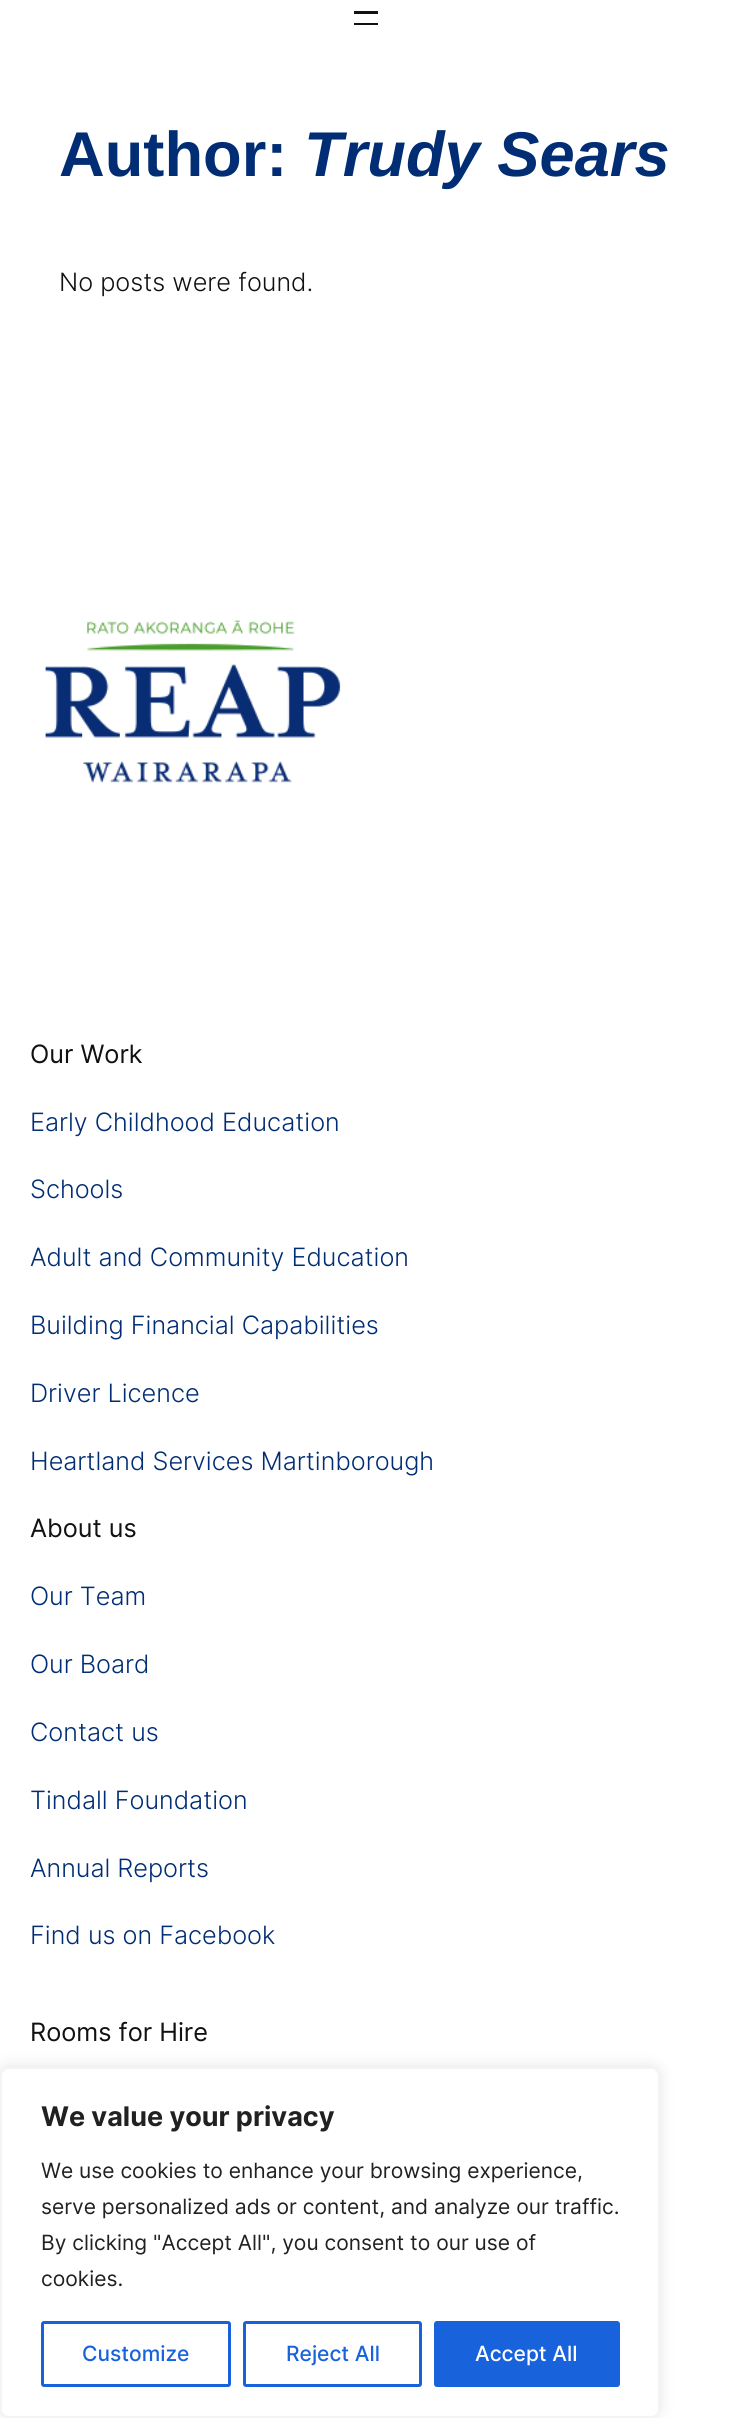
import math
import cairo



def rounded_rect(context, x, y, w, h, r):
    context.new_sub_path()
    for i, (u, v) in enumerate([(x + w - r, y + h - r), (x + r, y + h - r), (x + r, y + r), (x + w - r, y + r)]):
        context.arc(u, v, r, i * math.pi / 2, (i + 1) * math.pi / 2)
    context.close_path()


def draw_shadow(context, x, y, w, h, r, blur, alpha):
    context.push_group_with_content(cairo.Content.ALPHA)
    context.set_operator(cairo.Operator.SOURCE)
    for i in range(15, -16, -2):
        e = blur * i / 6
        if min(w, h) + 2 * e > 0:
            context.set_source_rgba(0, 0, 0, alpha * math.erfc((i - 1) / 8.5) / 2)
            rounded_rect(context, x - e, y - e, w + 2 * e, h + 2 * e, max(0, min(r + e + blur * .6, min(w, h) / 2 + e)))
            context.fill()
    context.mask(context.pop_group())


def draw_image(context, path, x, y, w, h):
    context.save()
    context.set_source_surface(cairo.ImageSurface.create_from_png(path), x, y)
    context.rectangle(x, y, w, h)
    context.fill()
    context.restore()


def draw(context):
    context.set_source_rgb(1, 1, 1)
    context.paint()
    context.set_source_rgb(17 / 255, 17 / 255, 17 / 255)
    context.rectangle(354, 11, 24, 3)
    context.fill()
    context.rectangle(354, 23, 24, 2)
    context.fill()
    draw_image(context, "images/1.png", 45, 620, 296, 163)
    context.set_source_rgb(172 / 255, 171 / 255, 171 / 255)
    draw_shadow(context, 0, 2066, 660, 351, 9, 7.5, 0.3)
    context.set_source_rgb(1, 1, 1)
    rounded_rect(context, 1, 2068, 658, 349, 8)
    context.fill_preserve()
    context.set_source_rgb(244 / 255, 244 / 255, 244 / 255)
    context.stroke()
    rounded_rect(context, 42.5, 2322.5, 187, 63, 1.5)
    context.set_source_rgb(24 / 255, 99 / 255, 220 / 255)
    context.set_line_width(3)
    context.stroke()
    rounded_rect(context, 244.5, 2322.5, 176, 63, 1.5)
    context.stroke()
    rounded_rect(context, 435.5, 2322.5, 183, 63, 1.5)
    context.fill_preserve()
    context.stroke()
    context.select_font_face("Liberation Sans", cairo.FontSlant.NORMAL, cairo.FontWeight.BOLD)
    context.set_font_size(63.25)
    context.set_source_rgb(0, 45 / 255, 116 / 255)
    context.move_to(59, 176)
    context.show_text("Author:")
    context.select_font_face("Liberation Sans", cairo.FontSlant.ITALIC, cairo.FontWeight.BOLD)
    context.move_to(304, 176)
    context.show_text("Trudy Sears")
    context.select_font_face("Inter Light")
    context.set_font_size(25.25)
    context.set_source_rgb(17 / 255, 17 / 255, 17 / 255)
    context.move_to(59, 291)
    context.show_text("No posts were found.")
    context.select_font_face("Inter")
    context.move_to(30, 1063)
    context.show_text("Our Work")
    context.select_font_face("Inter Light")
    context.set_source_rgb(0, 45 / 255, 116 / 255)
    context.move_to(30, 1131)
    context.show_text("Early Childhood Education")
    context.move_to(30, 1198)
    context.show_text("Schools")
    context.move_to(30, 1266)
    context.show_text("Adult and Community Education")
    context.move_to(30, 1334)
    context.show_text("Building Financial Capabilities")
    context.move_to(30, 1402)
    context.show_text("Driver Licence")
    context.move_to(30, 1470)
    context.show_text("Heartland Services Martinborough")
    context.select_font_face("Inter")
    context.set_source_rgb(17 / 255, 17 / 255, 17 / 255)
    context.move_to(30, 1537)
    context.show_text("About us")
    context.select_font_face("Inter Light")
    context.set_source_rgb(0, 45 / 255, 116 / 255)
    context.move_to(30, 1605)
    context.show_text("Our Team")
    context.move_to(30, 1673)
    context.show_text("Our Board")
    context.move_to(30, 1741)
    context.show_text("Contact us")
    context.move_to(30, 1809)
    context.show_text("Tindall Foundation")
    context.move_to(30, 1877)
    context.show_text("Annual Reports")
    context.move_to(30, 1944)
    context.show_text("Find us on Facebook")
    context.select_font_face("Inter")
    context.set_source_rgb(17 / 255, 17 / 255, 17 / 255)
    context.move_to(30, 2041)
    context.show_text("Rooms for Hire")
    context.select_font_face("Inter", cairo.FontSlant.NORMAL, cairo.FontWeight.BOLD)
    context.set_font_size(27)
    context.set_source_rgb(33 / 255, 33 / 255, 33 / 255)
    context.move_to(41, 2126)
    context.show_text("We value your privacy")
    context.select_font_face("Inter")
    context.set_font_size(21)
    context.move_to(41, 2178)
    context.show_text("We use cookies to enhance your browsing experience,")
    context.move_to(41, 2214)
    context.show_text("serve personalized ads or content, and analyze our traffic.")
    context.move_to(41, 2250)
    context.show_text("By clicking \"Accept All\", you consent to our use of")
    context.move_to(41, 2286)
    context.show_text("cookies.")
    context.select_font_face("Inter Medium")
    context.set_source_rgb(24 / 255, 99 / 255, 220 / 255)
    context.move_to(82, 2361)
    context.show_text("Customize")
    context.move_to(286, 2361)
    context.show_text("Reject All")
    context.set_source_rgb(1, 1, 1)
    context.move_to(475, 2361)
    context.show_text("Accept All")


surface = cairo.ImageSurface(cairo.Format.RGB24, 732, 2418)
context = cairo.Context(surface)
options = cairo.FontOptions()
options.set_hint_metrics(cairo.HintMetrics.OFF)
options.set_hint_style(cairo.HintStyle.NONE)
context.set_font_options(options)
context.set_miter_limit(4)
draw(context)
surface.write_to_png("out.png")
